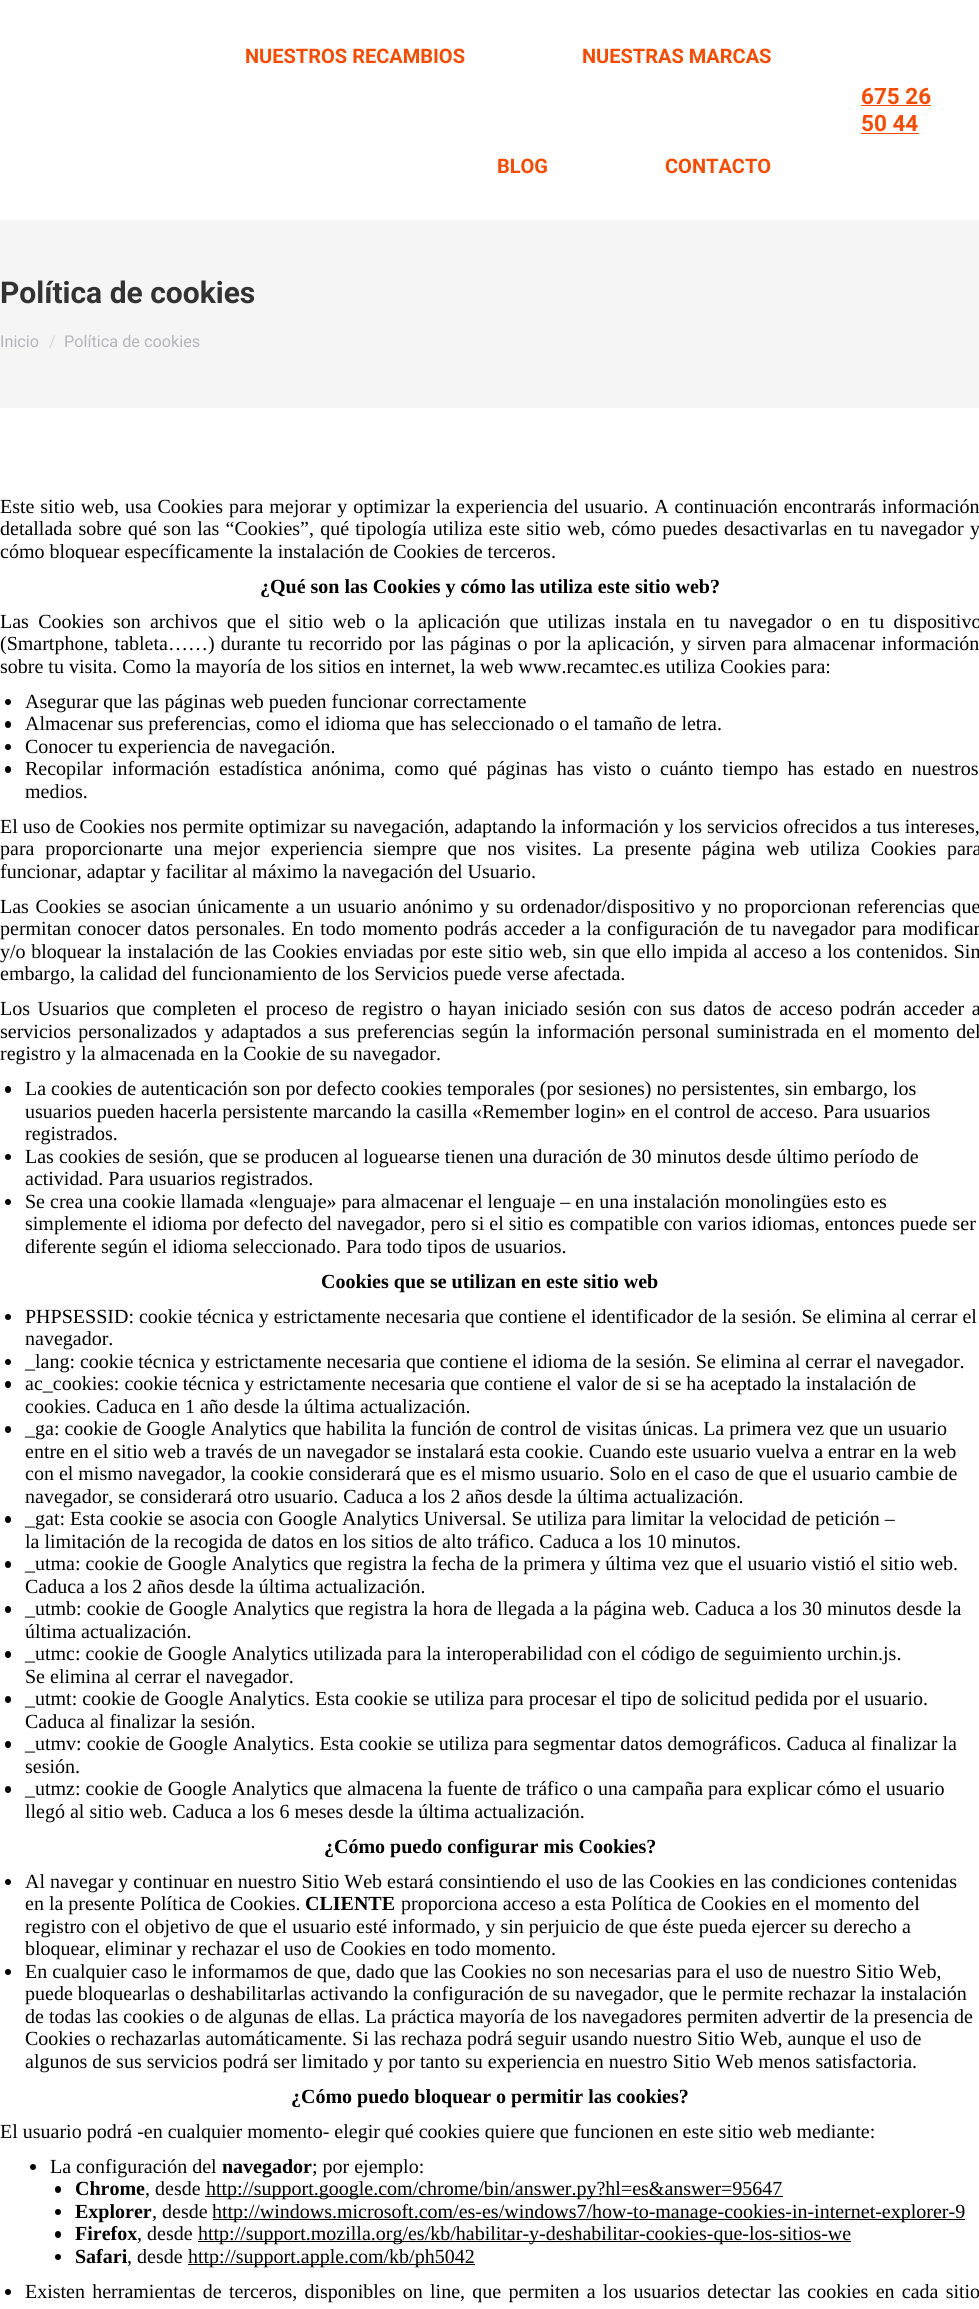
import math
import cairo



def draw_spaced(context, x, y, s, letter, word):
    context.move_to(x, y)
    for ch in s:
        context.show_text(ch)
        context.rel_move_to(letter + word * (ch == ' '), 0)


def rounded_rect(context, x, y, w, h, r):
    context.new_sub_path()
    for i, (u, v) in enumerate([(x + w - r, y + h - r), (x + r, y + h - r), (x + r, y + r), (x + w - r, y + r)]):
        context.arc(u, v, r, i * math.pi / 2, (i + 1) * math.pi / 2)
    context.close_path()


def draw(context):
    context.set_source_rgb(1, 1, 1)
    context.paint()
    context.set_source_rgb(244 / 255, 76 / 255, 2 / 255)
    context.rectangle(861, 105, 70, 1)
    context.fill()
    context.rectangle(861, 133, 58, 1)
    context.fill()
    context.set_source_rgb(245 / 255, 245 / 255, 245 / 255)
    context.rectangle(0, 220, 979, 188)
    context.fill()
    context.set_source_rgb(0, 0, 0)
    context.arc(8, 702, 3, 0, 2 * math.pi)
    context.fill()
    rounded_rect(context, 5, 721, 6, 7, 3)
    context.fill()
    context.arc(8, 747, 3, 0, 2 * math.pi)
    context.fill()
    rounded_rect(context, 5, 766, 6, 7, 3)
    context.fill()
    rounded_rect(context, 5, 1086, 6, 7, 3)
    context.fill()
    context.arc(8, 1157, 3, 0, 2 * math.pi)
    context.fill()
    context.arc(8, 1202, 3, 0, 2 * math.pi)
    context.fill()
    context.arc(8, 1317, 3, 0, 2 * math.pi)
    context.fill()
    context.arc(8, 1362, 3, 0, 2 * math.pi)
    context.fill()
    rounded_rect(context, 5, 1381, 6, 7, 3)
    context.fill()
    rounded_rect(context, 5, 1426, 6, 7, 3)
    context.fill()
    rounded_rect(context, 5, 1516, 6, 7, 3)
    context.fill()
    rounded_rect(context, 5, 1561, 6, 7, 3)
    context.fill()
    rounded_rect(context, 5, 1606, 6, 7, 3)
    context.fill()
    rounded_rect(context, 5, 1651, 6, 7, 3)
    context.fill()
    rounded_rect(context, 5, 1696, 6, 7, 3)
    context.fill()
    rounded_rect(context, 5, 1741, 6, 7, 3)
    context.fill()
    rounded_rect(context, 5, 1786, 6, 7, 3)
    context.fill()
    context.arc(8, 1882, 3, 0, 2 * math.pi)
    context.fill()
    context.arc(8, 1972, 3, 0, 2 * math.pi)
    context.fill()
    context.arc(33, 2167, 3, 0, 2 * math.pi)
    context.fill()
    rounded_rect(context, 55, 2186, 6, 7, 3)
    context.fill()
    context.rectangle(205, 2196, 578, 1)
    context.fill()
    context.arc(58, 2212, 3, 0, 2 * math.pi)
    context.fill()
    context.rectangle(213, 2219, 752, 1)
    context.fill()
    rounded_rect(context, 55, 2231, 6, 7, 3)
    context.fill()
    context.rectangle(198, 2241, 653, 1)
    context.fill()
    context.arc(58, 2257, 3, 0, 2 * math.pi)
    context.fill()
    context.rectangle(188, 2264, 287, 1)
    context.fill()
    context.arc(8, 2292, 3, 0, 2 * math.pi)
    context.fill()
    context.select_font_face("Roboto", cairo.FontSlant.NORMAL, cairo.FontWeight.BOLD)
    context.set_font_size(20)
    context.set_source_rgb(244 / 255, 76 / 255, 2 / 255)
    context.move_to(245, 63)
    context.show_text("NUESTROS RECAMBIOS")
    context.move_to(582, 63)
    context.show_text("NUESTRAS MARCAS")
    context.move_to(497, 173)
    context.show_text("BLOG")
    context.move_to(665, 173)
    context.show_text("CONTACTO")
    context.set_font_size(22.5)
    context.move_to(861, 104)
    context.show_text("675 26")
    context.move_to(861, 131)
    context.show_text("50 44")
    context.set_font_size(30)
    context.set_source_rgb(51 / 255, 51 / 255, 51 / 255)
    context.move_to(0, 303)
    context.show_text("Política de cookies")
    context.select_font_face("Roboto")
    context.set_font_size(16.25)
    context.set_source_rgb(180 / 255, 181 / 255, 187 / 255)
    context.move_to(0, 347)
    context.show_text("Inicio")
    context.set_source_rgb(213 / 255, 213 / 255, 216 / 255)
    context.move_to(49, 347)
    context.show_text("/")
    context.set_source_rgb(180 / 255, 181 / 255, 187 / 255)
    context.move_to(64, 347)
    context.show_text("Política de cookies")
    context.select_font_face("Liberation Serif")
    context.set_font_size(20)
    context.set_source_rgb(0, 0, 0)
    draw_spaced(context, 0, 513, "Este sitio web, usa Cookies para mejorar y optimizar la experiencia del usuario. A continuación encontrarás información", 0, 0.9)
    draw_spaced(context, 0, 535, "detallada sobre qué son las “Cookies”, qué tipología utiliza este sitio web, cómo puedes desactivarlas en tu navegador y", 0, 1.25)
    context.move_to(0, 558)
    context.show_text("cómo bloquear específicamente la instalación de Cookies de terceros.")
    context.select_font_face("Liberation Serif", cairo.FontSlant.NORMAL, cairo.FontWeight.BOLD)
    context.move_to(260, 593)
    context.show_text("¿Qué son las Cookies y cómo las utiliza este sitio web?")
    context.select_font_face("Liberation Serif")
    draw_spaced(context, 0, 628, "Las Cookies son archivos que el sitio web o la aplicación que utilizas instala en tu navegador o en tu dispositivo", 0, 4.25)
    draw_spaced(context, 0, 650, "(Smartphone, tableta……) durante tu recorrido por las páginas o por la aplicación, y sirven para almacenar información", 0, 1.3)
    context.move_to(0, 673)
    context.show_text("sobre tu visita. Como la mayoría de los sitios en internet, la web www.recamtec.es utiliza Cookies para:")
    context.move_to(25, 708)
    context.show_text("Asegurar que las páginas web pueden funcionar correctamente")
    context.move_to(25, 730)
    context.show_text("Almacenar sus preferencias, como el idioma que has seleccionado o el tamaño de letra.")
    context.move_to(25, 753)
    context.show_text("Conocer tu experiencia de navegación.")
    draw_spaced(context, 25, 775, "Recopilar información estadística anónima, como qué páginas has visto o cuánto tiempo has estado en nuestros", 0, 4.25)
    context.move_to(25, 798)
    context.show_text("medios.")
    context.move_to(0, 833)
    context.show_text("El uso de Cookies nos permite optimizar su navegación, adaptando la información y los servicios ofrecidos a tus intereses,")
    draw_spaced(context, 0, 855, "para proporcionarte una mejor experiencia siempre que nos visites. La presente página web utiliza Cookies para", 0, 5.75)
    context.move_to(0, 878)
    context.show_text("funcionar, adaptar y facilitar al máximo la navegación del Usuario.")
    draw_spaced(context, 0, 913, "Las Cookies se asocian únicamente a un usuario anónimo y su ordenador/dispositivo y no proporcionan referencias que", 0, 1.5)
    draw_spaced(context, 0, 935, "permitan conocer datos personales. En todo momento podrás acceder a la configuración de tu navegador para modificar", 0, 1.4)
    draw_spaced(context, 0, 958, "y/o bloquear la instalación de las Cookies enviadas por este sitio web, sin que ello impida al acceso a los contenidos. Sin", 0, 0.75)
    context.move_to(0, 980)
    context.show_text("embargo, la calidad del funcionamiento de los Servicios puede verse afectada.")
    draw_spaced(context, 0, 1015, "Los Usuarios que completen el proceso de registro o hayan iniciado sesión con sus datos de acceso podrán acceder a", 0, 2.6)
    draw_spaced(context, 0, 1038, "servicios personalizados y adaptados a sus preferencias según la información personal suministrada en el momento del", 0, 2.1)
    context.move_to(0, 1060)
    context.show_text("registro y la almacenada en la Cookie de su navegador.")
    context.move_to(25, 1095)
    context.show_text("La cookies de autenticación son por defecto cookies temporales (por sesiones) no persistentes, sin embargo, los")
    context.move_to(25, 1118)
    context.show_text("usuarios pueden hacerla persistente marcando la casilla «Remember login» en el control de acceso. Para usuarios")
    context.move_to(25, 1140)
    context.show_text("registrados.")
    context.move_to(25, 1163)
    context.show_text("Las cookies de sesión, que se producen al loguearse tienen una duración de 30 minutos desde último período de")
    context.move_to(25, 1185)
    context.show_text("actividad. Para usuarios registrados.")
    context.move_to(25, 1208)
    context.show_text("Se crea una cookie llamada «lenguaje» para almacenar el lenguaje – en una instalación monolingües esto es")
    context.move_to(25, 1230)
    context.show_text("simplemente el idioma por defecto del navegador, pero si el sitio es compatible con varios idiomas, entonces puede ser")
    context.move_to(25, 1253)
    context.show_text("diferente según el idioma seleccionado. Para todo tipos de usuarios.")
    context.select_font_face("Liberation Serif", cairo.FontSlant.NORMAL, cairo.FontWeight.BOLD)
    context.move_to(321, 1288)
    context.show_text("Cookies que se utilizan en este sitio web")
    context.select_font_face("Liberation Serif")
    context.move_to(25, 1323)
    context.show_text("PHPSESSID: cookie técnica y estrictamente necesaria que contiene el identificador de la sesión. Se elimina al cerrar el")
    context.move_to(25, 1345)
    context.show_text("navegador.")
    context.move_to(25, 1368)
    context.show_text("_lang: cookie técnica y estrictamente necesaria que contiene el idioma de la sesión. Se elimina al cerrar el navegador.")
    context.move_to(25, 1390)
    context.show_text("ac_cookies: cookie técnica y estrictamente necesaria que contiene el valor de si se ha aceptado la instalación de")
    context.move_to(25, 1413)
    context.show_text("cookies. Caduca en 1 año desde la última actualización.")
    context.move_to(25, 1435)
    context.show_text("_ga: cookie de Google Analytics que habilita la función de control de visitas únicas. La primera vez que un usuario")
    context.move_to(25, 1458)
    context.show_text("entre en el sitio web a través de un navegador se instalará esta cookie. Cuando este usuario vuelva a entrar en la web")
    context.move_to(25, 1480)
    context.show_text("con el mismo navegador, la cookie considerará que es el mismo usuario. Solo en el caso de que el usuario cambie de")
    context.move_to(25, 1503)
    context.show_text("navegador, se considerará otro usuario. Caduca a los 2 años desde la última actualización.")
    context.move_to(25, 1525)
    context.show_text("_gat: Esta cookie se asocia con Google Analytics Universal. Se utiliza para limitar la velocidad de petición –")
    context.move_to(25, 1548)
    context.show_text("la limitación de la recogida de datos en los sitios de alto tráfico. Caduca a los 10 minutos.")
    context.move_to(25, 1570)
    context.show_text("_utma: cookie de Google Analytics que registra la fecha de la primera y última vez que el usuario vistió el sitio web.")
    context.move_to(25, 1593)
    context.show_text("Caduca a los 2 años desde la última actualización.")
    context.move_to(25, 1615)
    context.show_text("_utmb: cookie de Google Analytics que registra la hora de llegada a la página web. Caduca a los 30 minutos desde la")
    context.move_to(25, 1638)
    context.show_text("última actualización.")
    context.move_to(25, 1660)
    context.show_text("_utmc: cookie de Google Analytics utilizada para la interoperabilidad con el código de seguimiento urchin.js.")
    context.move_to(25, 1683)
    context.show_text("Se elimina al cerrar el navegador.")
    context.move_to(25, 1705)
    context.show_text("_utmt: cookie de Google Analytics. Esta cookie se utiliza para procesar el tipo de solicitud pedida por el usuario.")
    context.move_to(25, 1728)
    context.show_text("Caduca al finalizar la sesión.")
    context.move_to(25, 1750)
    context.show_text("_utmv: cookie de Google Analytics. Esta cookie se utiliza para segmentar datos demográficos. Caduca al finalizar la")
    context.move_to(25, 1773)
    context.show_text("sesión.")
    context.move_to(25, 1795)
    context.show_text("_utmz: cookie de Google Analytics que almacena la fuente de tráfico o una campaña para explicar cómo el usuario")
    context.move_to(25, 1818)
    context.show_text("llegó al sitio web. Caduca a los 6 meses desde la última actualización.")
    context.select_font_face("Liberation Serif", cairo.FontSlant.NORMAL, cairo.FontWeight.BOLD)
    context.move_to(324, 1853)
    context.show_text("¿Cómo puedo configurar mis Cookies?")
    context.select_font_face("Liberation Serif")
    context.move_to(25, 1888)
    context.show_text("Al navegar y continuar en nuestro Sitio Web estará consintiendo el uso de las Cookies en las condiciones contenidas")
    context.move_to(25, 1910)
    context.show_text("en la presente Política de Cookies.")
    context.select_font_face("Liberation Serif", cairo.FontSlant.NORMAL, cairo.FontWeight.BOLD)
    context.move_to(305, 1910)
    context.show_text("CLIENTE")
    context.select_font_face("Liberation Serif")
    context.move_to(401, 1910)
    context.show_text("proporciona acceso a esta Política de Cookies en el momento del")
    context.move_to(25, 1933)
    context.show_text("registro con el objetivo de que el usuario esté informado, y sin perjuicio de que éste pueda ejercer su derecho a")
    context.move_to(25, 1955)
    context.show_text("bloquear, eliminar y rechazar el uso de Cookies en todo momento.")
    context.move_to(25, 1978)
    context.show_text("En cualquier caso le informamos de que, dado que las Cookies no son necesarias para el uso de nuestro Sitio Web,")
    context.move_to(25, 2000)
    context.show_text("puede bloquearlas o deshabilitarlas activando la configuración de su navegador, que le permite rechazar la instalación")
    context.move_to(25, 2023)
    context.show_text("de todas las cookies o de algunas de ellas. La práctica mayoría de los navegadores permiten advertir de la presencia de")
    context.move_to(25, 2045)
    context.show_text("Cookies o rechazarlas automáticamente. Si las rechaza podrá seguir usando nuestro Sitio Web, aunque el uso de")
    context.move_to(25, 2068)
    context.show_text("algunos de sus servicios podrá ser limitado y por tanto su experiencia en nuestro Sitio Web menos satisfactoria.")
    context.select_font_face("Liberation Serif", cairo.FontSlant.NORMAL, cairo.FontWeight.BOLD)
    context.move_to(291, 2103)
    context.show_text("¿Cómo puedo bloquear o permitir las cookies?")
    context.select_font_face("Liberation Serif")
    context.move_to(0, 2138)
    context.show_text("El usuario podrá -en cualquier momento- elegir qué cookies quiere que funcionen en este sitio web mediante:")
    context.move_to(50, 2173)
    context.show_text("La configuración del")
    context.select_font_face("Liberation Serif", cairo.FontSlant.NORMAL, cairo.FontWeight.BOLD)
    context.move_to(222, 2173)
    context.show_text("navegador")
    context.select_font_face("Liberation Serif")
    context.move_to(312, 2173)
    context.show_text("; por ejemplo:")
    context.select_font_face("Liberation Serif", cairo.FontSlant.NORMAL, cairo.FontWeight.BOLD)
    context.move_to(75, 2195)
    context.show_text("Chrome")
    context.select_font_face("Liberation Serif")
    context.move_to(145, 2195)
    context.show_text(", desde")
    context.move_to(206, 2195)
    context.show_text("http://support.google.com/chrome/bin/answer.py?hl=es&answer=95647")
    context.select_font_face("Liberation Serif", cairo.FontSlant.NORMAL, cairo.FontWeight.BOLD)
    context.move_to(75, 2218)
    context.show_text("Explorer")
    context.select_font_face("Liberation Serif")
    context.move_to(152, 2218)
    context.show_text(", desde")
    context.move_to(212, 2218)
    context.show_text("http://windows.microsoft.com/es-es/windows7/how-to-manage-cookies-in-internet-explorer-9")
    context.select_font_face("Liberation Serif", cairo.FontSlant.NORMAL, cairo.FontWeight.BOLD)
    context.move_to(75, 2240)
    context.show_text("Firefox")
    context.select_font_face("Liberation Serif")
    context.move_to(137, 2240)
    context.show_text(", desde")
    context.move_to(198, 2240)
    context.show_text("http://support.mozilla.org/es/kb/habilitar-y-deshabilitar-cookies-que-los-sitios-we")
    context.select_font_face("Liberation Serif", cairo.FontSlant.NORMAL, cairo.FontWeight.BOLD)
    context.move_to(75, 2263)
    context.show_text("Safari")
    context.select_font_face("Liberation Serif")
    context.move_to(127, 2263)
    context.show_text(", desde")
    context.move_to(188, 2263)
    context.show_text("http://support.apple.com/kb/ph5042")
    draw_spaced(context, 25, 2298, "Existen herramientas de terceros, disponibles on line, que permiten a los usuarios detectar las cookies en cada sitio", 0, 2.25)


surface = cairo.ImageSurface(cairo.Format.RGB24, 979, 2309)
context = cairo.Context(surface)
options = cairo.FontOptions()
options.set_hint_metrics(cairo.HintMetrics.OFF)
options.set_hint_style(cairo.HintStyle.NONE)
context.set_font_options(options)
context.set_miter_limit(4)
draw(context)
surface.write_to_png("out.png")
